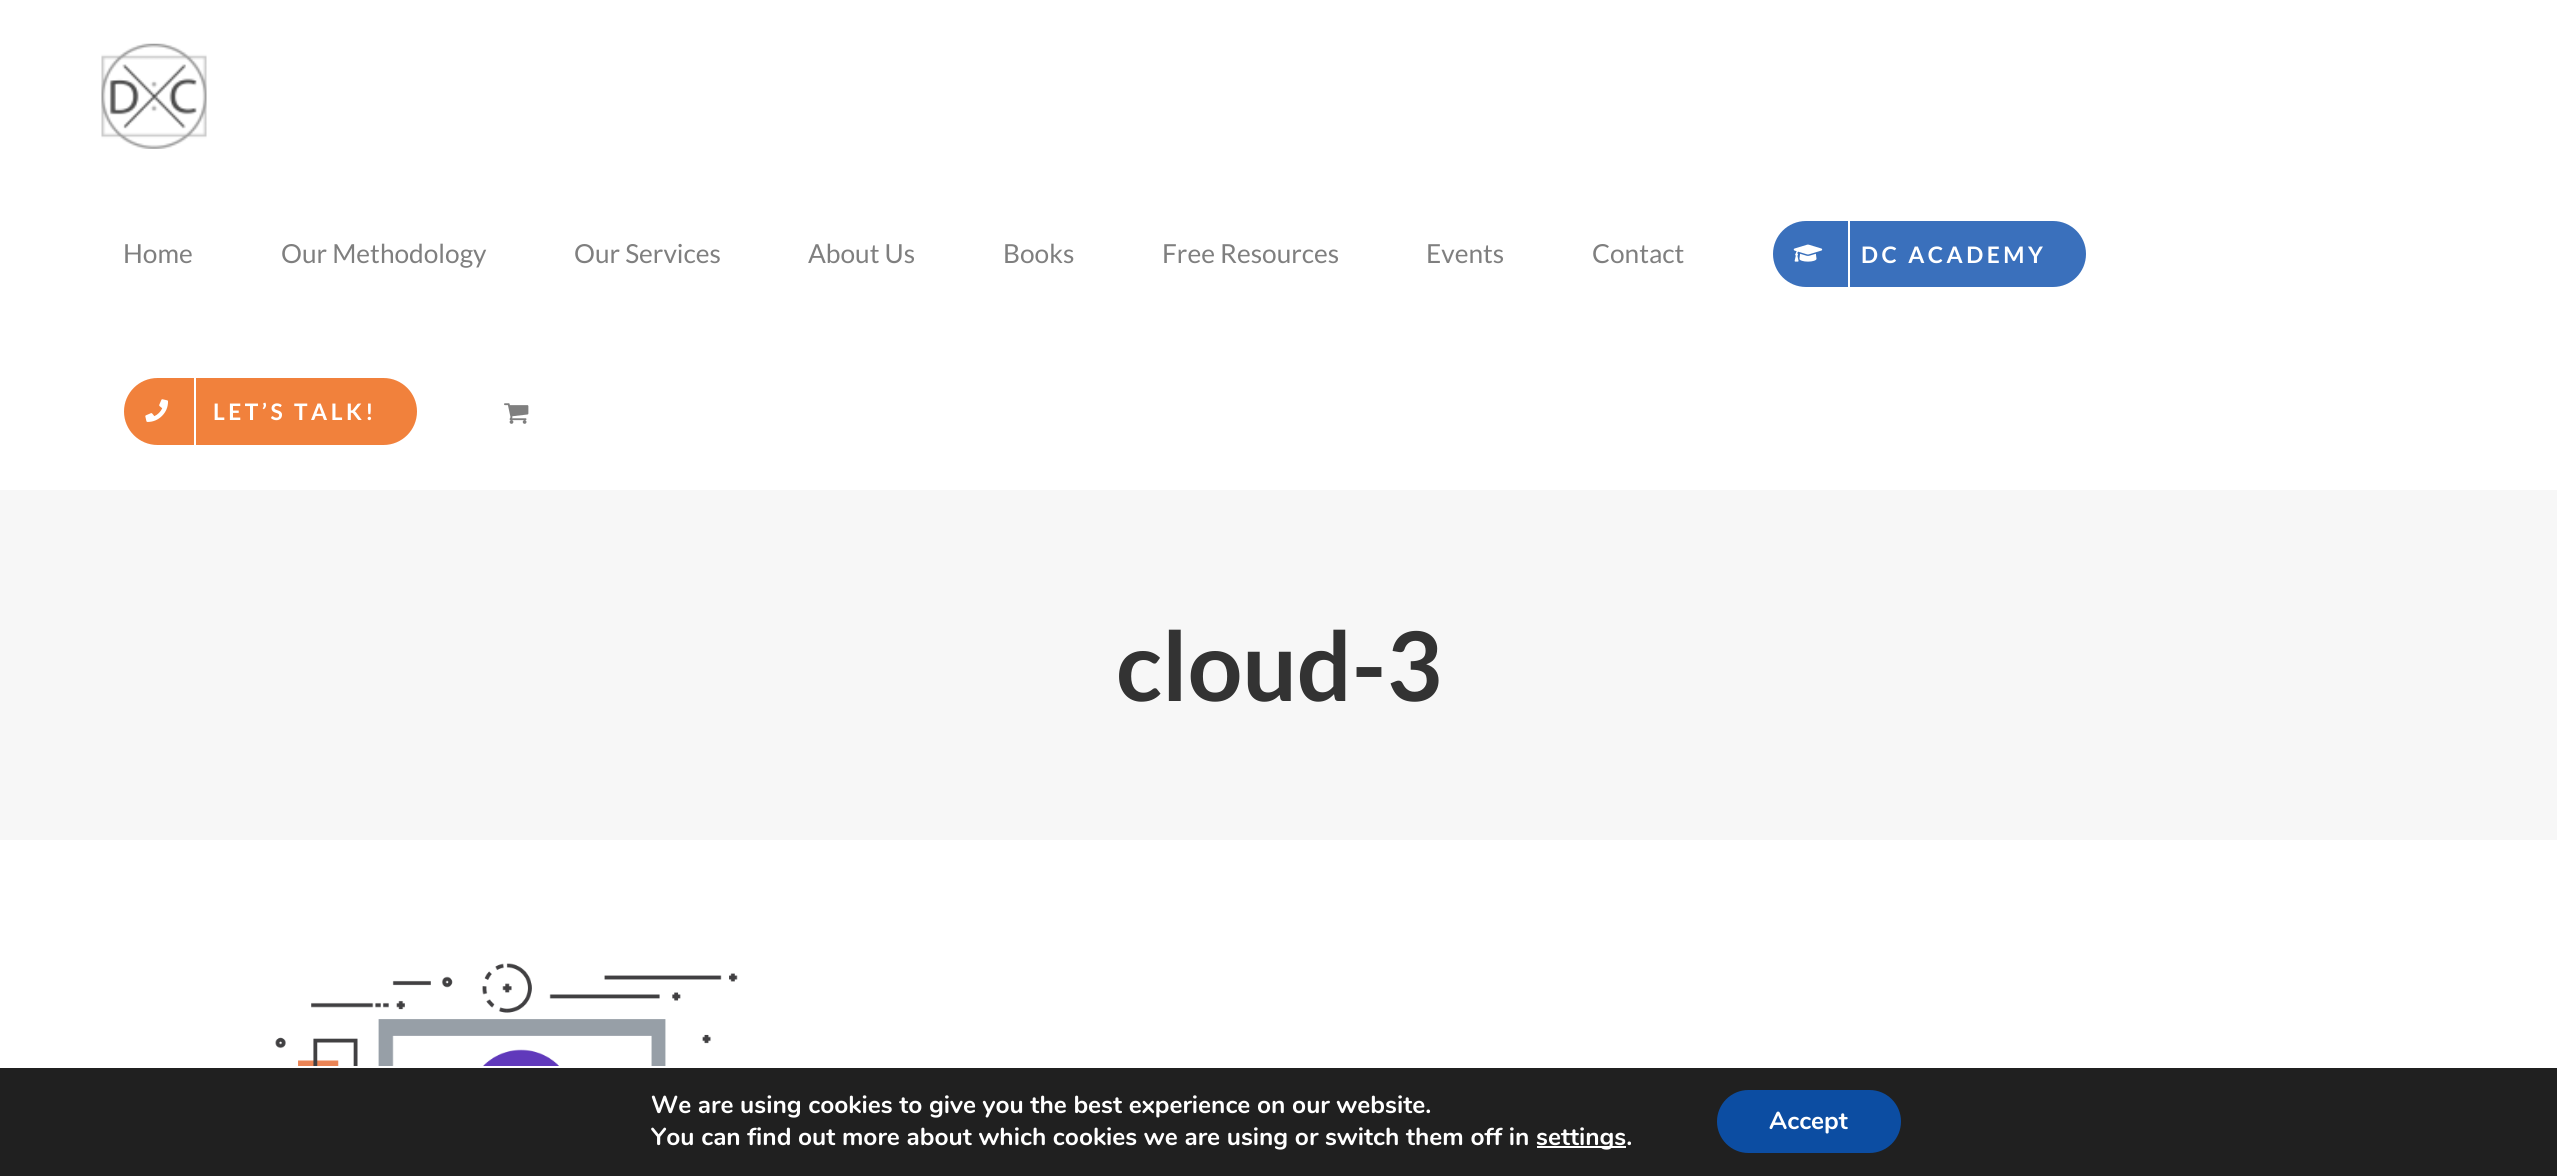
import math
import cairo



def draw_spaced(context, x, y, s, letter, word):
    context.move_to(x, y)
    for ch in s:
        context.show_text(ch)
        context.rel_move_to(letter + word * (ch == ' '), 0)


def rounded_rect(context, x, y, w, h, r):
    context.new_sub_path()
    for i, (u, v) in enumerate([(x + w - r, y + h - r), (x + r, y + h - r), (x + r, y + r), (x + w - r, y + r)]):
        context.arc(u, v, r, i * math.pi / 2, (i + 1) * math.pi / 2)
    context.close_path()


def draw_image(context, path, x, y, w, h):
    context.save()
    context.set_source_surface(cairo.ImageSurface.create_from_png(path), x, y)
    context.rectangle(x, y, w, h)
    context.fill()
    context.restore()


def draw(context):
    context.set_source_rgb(1, 1, 1)
    context.paint()
    draw_image(context, "images/1.png", 101, 43, 106, 106)
    context.set_source_rgb(58 / 255, 112 / 255, 188 / 255)
    rounded_rect(context, 1773, 221, 313, 66, 33)
    context.fill()
    context.set_source_rgb(1, 1, 1)
    context.rectangle(1848, 221, 2, 66)
    context.fill()
    draw_image(context, "images/2.png", 1793, 244, 30, 18)
    context.set_source_rgb(241 / 255, 129 / 255, 60 / 255)
    rounded_rect(context, 124, 378, 293, 67, 33.5)
    context.fill()
    context.set_source_rgb(1, 1, 1)
    context.rectangle(194, 378, 2, 67)
    context.fill()
    draw_image(context, "images/3.png", 145, 399, 23, 23)
    draw_image(context, "images/4.png", 504, 403, 25, 21)
    context.set_source_rgb(247 / 255, 247 / 255, 247 / 255)
    context.rectangle(0, 490, 2557, 350)
    context.fill()
    draw_image(context, "images/5.png", 275, 963, 463, 103)
    context.set_source_rgb(32 / 255, 32 / 255, 32 / 255)
    context.rectangle(0, 1068, 2557, 108)
    context.fill()
    context.set_source_rgb(1, 1, 1)
    context.rectangle(1537, 1146, 89, 2)
    context.fill()
    context.set_source_rgb(12 / 255, 77 / 255, 162 / 255)
    rounded_rect(context, 1717, 1090, 184, 63, 31.5)
    context.fill()
    context.select_font_face("Lato")
    context.set_font_size(26.25)
    context.set_source_rgb(127 / 255, 127 / 255, 127 / 255)
    context.move_to(123, 263)
    context.show_text("Home")
    context.move_to(281, 263)
    context.show_text("Our Methodology")
    context.move_to(574, 263)
    context.show_text("Our Services")
    context.move_to(808, 263)
    context.show_text("About Us")
    context.move_to(1003, 263)
    context.show_text("Books")
    context.move_to(1162, 263)
    context.show_text("Free Resources")
    context.move_to(1426, 263)
    context.show_text("Events")
    context.move_to(1592, 263)
    context.show_text("Contact")
    context.select_font_face("Lato", cairo.FontSlant.NORMAL, cairo.FontWeight.BOLD)
    context.set_font_size(22.75)
    context.set_source_rgb(1, 1, 1)
    draw_spaced(context, 1861, 263, "DC ACADEMY", 3.5, 0)
    draw_spaced(context, 213, 420, "LET’S TALK!", 3.5, 0)
    context.set_font_size(96)
    context.set_source_rgb(51 / 255, 51 / 255, 51 / 255)
    context.move_to(1116, 701)
    context.show_text("cloud-3")
    context.select_font_face("Nunito", cairo.FontSlant.NORMAL, cairo.FontWeight.BOLD)
    context.set_font_size(24.5)
    context.set_source_rgb(1, 1, 1)
    context.move_to(651, 1113)
    context.show_text("We are using cookies to give you the best experience on our website.")
    context.move_to(651, 1145)
    context.show_text("You can find out more about which cookies we are using or switch them off in")
    context.move_to(1536, 1145)
    context.show_text("settings.")
    context.move_to(1769, 1129)
    context.show_text("Accept")


surface = cairo.ImageSurface(cairo.Format.RGB24, 2557, 1176)
context = cairo.Context(surface)
options = cairo.FontOptions()
options.set_hint_metrics(cairo.HintMetrics.OFF)
options.set_hint_style(cairo.HintStyle.NONE)
context.set_font_options(options)
context.set_miter_limit(4)
draw(context)
surface.write_to_png("out.png")
